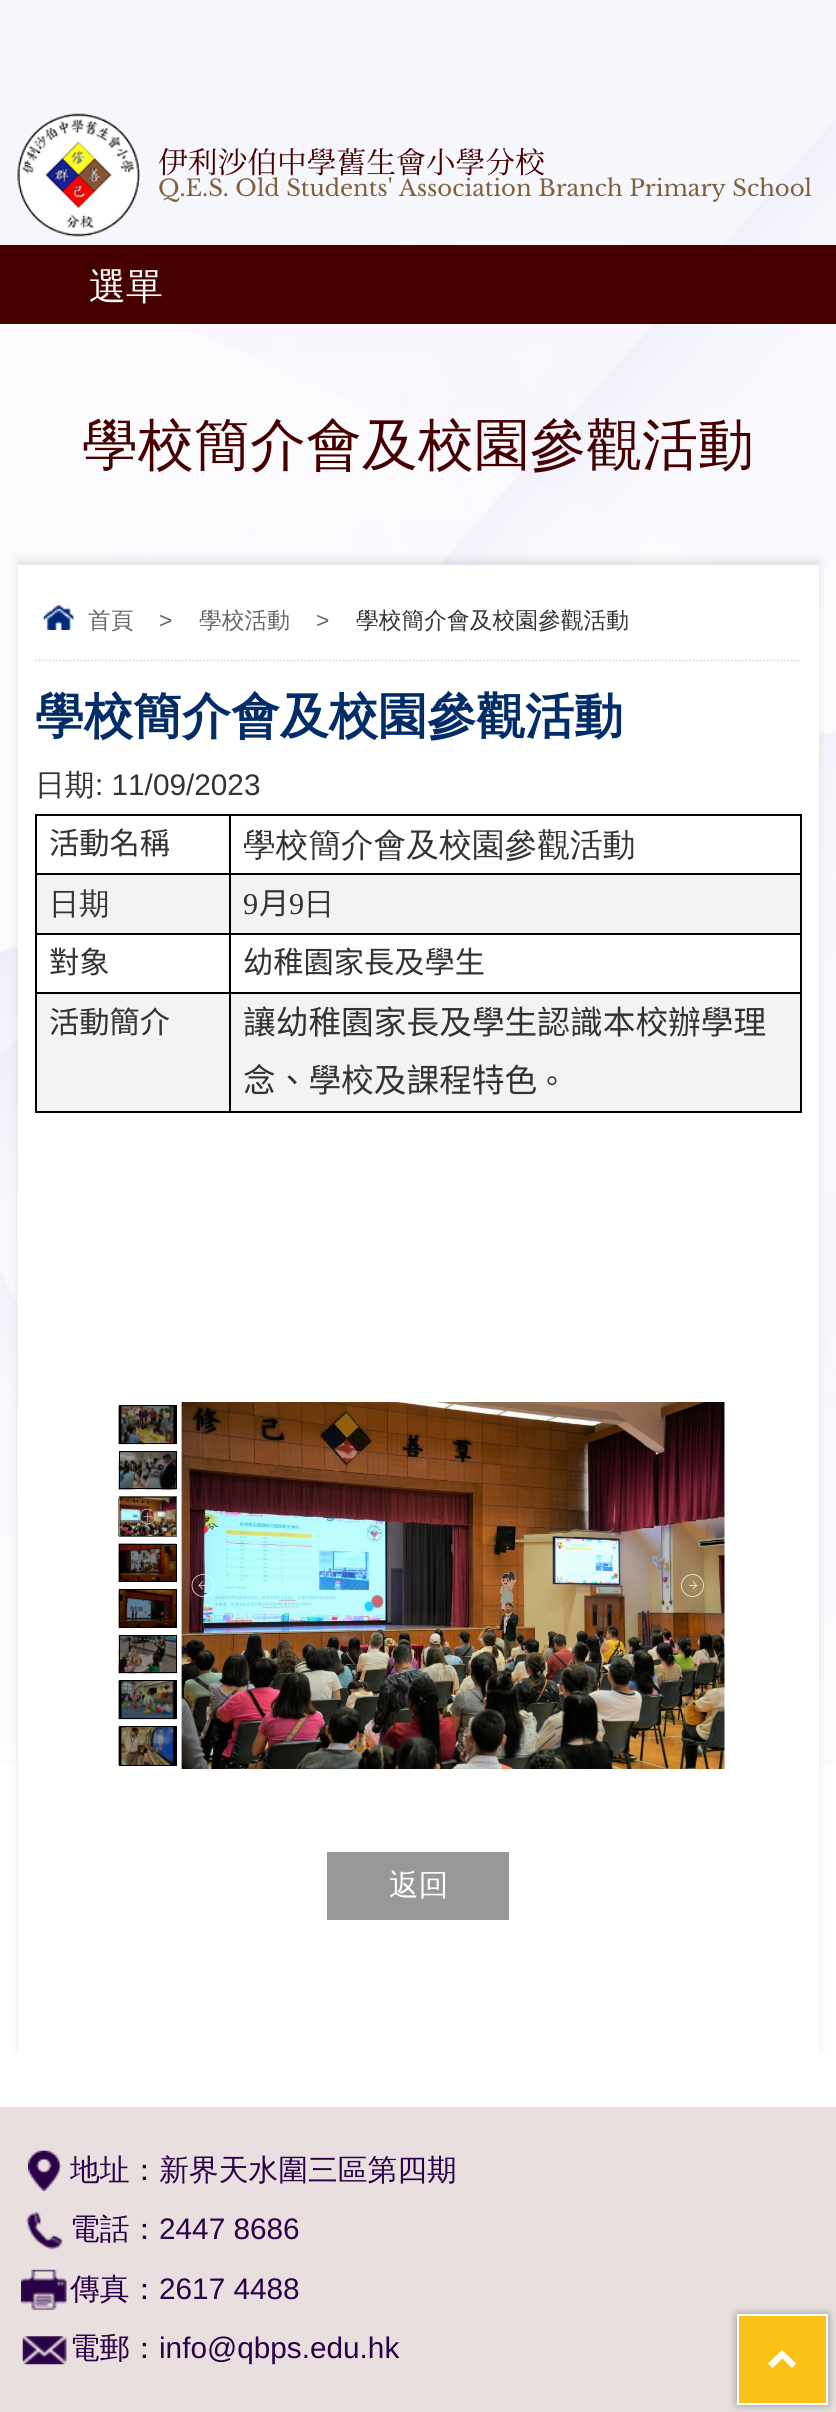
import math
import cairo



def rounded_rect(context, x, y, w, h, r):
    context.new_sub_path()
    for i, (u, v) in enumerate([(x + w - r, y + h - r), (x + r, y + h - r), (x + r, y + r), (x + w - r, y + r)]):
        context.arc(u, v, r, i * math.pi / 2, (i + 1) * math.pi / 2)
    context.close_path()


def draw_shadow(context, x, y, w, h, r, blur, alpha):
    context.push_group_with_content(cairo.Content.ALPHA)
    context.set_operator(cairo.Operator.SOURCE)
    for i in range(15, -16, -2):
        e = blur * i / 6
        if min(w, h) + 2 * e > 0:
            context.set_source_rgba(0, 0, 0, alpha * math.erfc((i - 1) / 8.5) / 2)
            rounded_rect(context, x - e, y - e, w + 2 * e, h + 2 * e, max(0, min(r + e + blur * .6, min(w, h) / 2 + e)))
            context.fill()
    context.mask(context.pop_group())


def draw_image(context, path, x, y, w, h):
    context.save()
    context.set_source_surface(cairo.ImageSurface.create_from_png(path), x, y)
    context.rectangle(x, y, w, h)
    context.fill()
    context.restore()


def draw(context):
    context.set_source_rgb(1, 1, 1)
    context.paint()
    draw_image(context, "images/1.png", 0, 0, 836, 1765)
    draw_image(context, "images/2.png", 17, 113, 123, 124)
    context.set_source_rgb(71 / 255, 0, 0)
    context.rectangle(0, 245, 836, 79)
    context.fill()
    context.set_source_rgb(0, 0, 0)
    draw_shadow(context, 18, 560, 801, 1489, 0, 4.5, 0.1)
    context.set_source_rgb(1, 1, 1)
    context.rectangle(18, 565, 801, 1490)
    context.fill()
    context.new_path()
    context.move_to(35, 660.5)
    context.line_to(801.5, 660.5)
    context.set_source_rgb(221 / 255, 221 / 255, 221 / 255)
    context.set_line_width(1.8)
    context.set_dash([1.75, 1.75])
    context.stroke()
    draw_image(context, "images/3.png", 43, 605, 31, 25)
    context.set_source_rgb(0, 0, 0)
    context.rectangle(35, 814, 767, 2)
    context.fill()
    context.rectangle(800, 873, 2, 240)
    context.fill()
    context.rectangle(800, 814, 2, 61)
    context.fill()
    context.rectangle(229, 1111, 573, 2)
    context.fill()
    context.rectangle(229, 992, 2, 121)
    context.fill()
    context.rectangle(229, 992, 573, 2)
    context.fill()
    context.rectangle(229, 933, 2, 61)
    context.fill()
    context.rectangle(229, 933, 573, 2)
    context.fill()
    context.rectangle(229, 873, 2, 62)
    context.fill()
    context.rectangle(229, 873, 573, 2)
    context.fill()
    context.rectangle(229, 814, 2, 61)
    context.fill()
    context.rectangle(35, 1111, 196, 2)
    context.fill()
    context.rectangle(35, 992, 2, 121)
    context.fill()
    context.rectangle(35, 992, 196, 2)
    context.fill()
    context.rectangle(35, 933, 2, 61)
    context.fill()
    context.rectangle(35, 933, 196, 2)
    context.fill()
    context.rectangle(35, 873, 2, 62)
    context.fill()
    context.rectangle(35, 873, 196, 2)
    context.fill()
    context.rectangle(35, 814, 2, 61)
    context.fill()
    context.set_source_rgb(243 / 255, 243 / 255, 243 / 255)
    context.rectangle(37, 875, 192, 58)
    context.fill()
    context.rectangle(231, 875, 569, 58)
    context.fill()
    context.rectangle(37, 994, 192, 117)
    context.fill()
    context.rectangle(231, 994, 569, 117)
    context.fill()
    context.set_source_rgb(0, 0, 0)
    context.rectangle(120, 1406, 56, 37)
    context.fill()
    draw_image(context, "images/4.png", 118, 1405, 58, 40)
    context.rectangle(119.5, 1405.5, 57, 38)
    context.set_line_width(1)
    context.set_dash([])
    context.stroke()
    context.rectangle(120, 1452, 56, 36)
    context.fill()
    draw_image(context, "images/5.png", 118, 1451, 59, 40)
    context.rectangle(119.5, 1451.5, 57, 37)
    context.stroke()
    context.rectangle(119, 1496, 58, 41)
    context.fill()
    draw_image(context, "images/6.png", 118, 1497, 59, 39)
    context.rectangle(119.5, 1496.5, 57, 40)
    context.set_source_rgba(1, 1, 1, 0.35)
    context.stroke()
    context.arc(147.5, 1516.5, 7.5, 0, 2 * math.pi)
    context.set_line_width(0.9)
    context.stroke()
    context.set_source_rgba(1, 1, 1, 0.32)
    context.rectangle(144, 1516, 8, 1)
    context.fill()
    context.rectangle(147, 1513, 1, 8)
    context.fill()
    context.set_source_rgb(0, 0, 0)
    context.rectangle(120, 1545, 56, 36)
    context.fill()
    draw_image(context, "images/7.png", 118, 1543, 59, 39)
    context.rectangle(119.5, 1544.5, 57, 37)
    context.set_line_width(1)
    context.stroke()
    context.rectangle(120, 1590, 56, 37)
    context.fill()
    draw_image(context, "images/8.png", 118, 1589, 58, 39)
    context.rectangle(119.5, 1589.5, 57, 38)
    context.stroke()
    context.rectangle(120, 1636, 56, 36)
    context.fill()
    draw_image(context, "images/9.png", 118, 1635, 59, 39)
    context.rectangle(119.5, 1635.5, 57, 37)
    context.stroke()
    context.rectangle(120, 1681, 56, 37)
    context.fill()
    draw_image(context, "images/10.png", 118, 1680, 59, 40)
    context.rectangle(119.5, 1680.5, 57, 38)
    context.stroke()
    context.rectangle(120, 1727, 56, 38)
    context.fill()
    draw_image(context, "images/11.png", 118, 1726, 56, 40)
    context.rectangle(119.5, 1726.5, 57, 39)
    context.stroke()
    draw_image(context, "images/12.png", 181, 1402, 544, 367)
    context.arc(203, 1585.5, 11, 0, 2 * math.pi)
    context.set_source_rgb(1, 1, 1)
    context.set_line_width(0.7)
    context.stroke()
    context.new_path()
    context.move_to(202.5, 1581.5)
    context.line_to(199, 1585.5)
    context.line_to(202.5, 1589)
    context.stroke()
    context.set_source_rgba(1, 1, 1, 0.7)
    context.rectangle(199, 1585, 8, 1)
    context.fill()
    context.arc(692.5, 1585.5, 11, 0, 2 * math.pi)
    context.set_source_rgb(1, 1, 1)
    context.stroke()
    context.new_path()
    context.move_to(693, 1581.5)
    context.line_to(696.5, 1585.5)
    context.line_to(693, 1589)
    context.stroke()
    context.set_source_rgba(1, 1, 1, 0.7)
    context.rectangle(689, 1585, 8, 1)
    context.fill()
    context.set_source_rgb(152 / 255, 152 / 255, 152 / 255)
    context.rectangle(327, 1852, 182, 68)
    context.fill()
    context.set_source_rgb(233 / 255, 223 / 255, 223 / 255)
    context.rectangle(0, 2107, 836, 305)
    context.fill()
    draw_image(context, "images/13.png", 28, 2150, 34, 41)
    draw_image(context, "images/14.png", 26, 2212, 37, 38)
    draw_image(context, "images/15.png", 21, 2269, 46, 41)
    draw_image(context, "images/16.png", 22, 2336, 45, 29)
    context.set_source_rgb(153 / 255, 153 / 255, 153 / 255)
    draw_shadow(context, 737, 2314, 91, 91, 0, 4.5, 1)
    context.set_source_rgb(250 / 255, 194 / 255, 23 / 255)
    context.rectangle(739, 2316, 87, 87)
    context.fill()
    context.set_source_rgb(1, 1, 1)
    context.new_path()
    context.move_to(782, 2350)
    context.line_to(796, 2363.5)
    context.line_to(792, 2368)
    context.line_to(782.5, 2358.5)
    context.line_to(772.5, 2368)
    context.line_to(768, 2363.5)
    context.close_path()
    context.fill()
    context.rectangle(738, 2315, 89, 89)
    context.set_line_width(2)
    context.stroke()
    context.select_font_face("Noto Serif HK ExtraLight")
    context.set_font_size(29.75)
    context.set_source_rgb(71 / 255, 0, 0)
    context.move_to(158, 173)
    context.show_text("伊利沙伯中學舊生會小學分校")
    context.select_font_face("Libre Baskerville")
    context.set_font_size(22.75)
    context.set_source_rgb(128 / 255, 96 / 255, 62 / 255)
    context.move_to(158, 196)
    context.show_text("Q.E.S. Old Students' Association Branch Primary School")
    context.select_font_face("WenQuanYi Zen Hei Medium")
    context.set_font_size(37)
    context.set_source_rgb(1, 1, 1)
    context.move_to(89, 299)
    context.show_text("選單")
    context.set_font_size(56)
    context.set_source_rgb(71 / 255, 0, 0)
    context.move_to(82, 464)
    context.show_text("學校簡介會及校園參觀活動")
    context.set_font_size(22.75)
    context.set_source_rgb(102 / 255, 102 / 255, 102 / 255)
    context.move_to(88, 628)
    context.show_text("首頁")
    context.select_font_face("Liberation Sans")
    context.move_to(159, 628)
    context.show_text(">")
    context.select_font_face("WenQuanYi Zen Hei Medium")
    context.move_to(199, 628)
    context.show_text("學校活動")
    context.select_font_face("Liberation Sans")
    context.move_to(316, 628)
    context.show_text(">")
    context.select_font_face("WenQuanYi Zen Hei Medium")
    context.set_source_rgb(51 / 255, 51 / 255, 51 / 255)
    context.move_to(356, 628)
    context.show_text("學校簡介會及校園參觀活動")
    context.select_font_face("WenQuanYi Zen Hei", cairo.FontSlant.NORMAL, cairo.FontWeight.BOLD)
    context.set_font_size(49)
    context.set_source_rgb(3 / 255, 45 / 255, 105 / 255)
    context.move_to(35, 733)
    context.show_text("學校簡介會及校園參觀活動")
    context.select_font_face("WenQuanYi Zen Hei Medium")
    context.set_font_size(29.75)
    context.set_source_rgb(51 / 255, 51 / 255, 51 / 255)
    context.move_to(35, 795)
    context.show_text("日期")
    context.select_font_face("Liberation Sans")
    context.move_to(95, 795)
    context.show_text(": 11/09/2023")
    context.select_font_face("Noto Sans CJK TC")
    context.set_font_size(30.25)
    context.move_to(49, 854)
    context.show_text("活動名稱")
    context.select_font_face("WenQuanYi Zen Hei Medium")
    context.set_font_size(32.7)
    context.move_to(243, 856)
    context.show_text("學校簡介會及校園參觀活動")
    context.set_font_size(30.25)
    context.move_to(49, 914)
    context.show_text("日期")
    context.select_font_face("Liberation Serif")
    context.move_to(243, 914)
    context.show_text("9")
    context.select_font_face("Noto Sans CJK TC")
    context.move_to(259, 914)
    context.show_text("月")
    context.select_font_face("Liberation Serif")
    context.move_to(289, 914)
    context.show_text("9")
    context.select_font_face("WenQuanYi Zen Hei Medium")
    context.move_to(304, 914)
    context.show_text("日")
    context.select_font_face("Noto Sans CJK TC")
    context.move_to(49, 973)
    context.show_text("對象")
    context.move_to(243, 973)
    context.show_text("幼稚園家長及學生")
    context.move_to(49, 1033)
    context.show_text("活動簡介")
    context.set_font_size(32.7)
    context.move_to(243, 1034)
    context.show_text("讓幼稚園家長及學生認識本校辦學理")
    context.move_to(243, 1092)
    context.show_text("念、學校及課程特色")
    context.set_font_size(29.75)
    context.move_to(537, 1092)
    context.show_text("。")
    context.select_font_face("WenQuanYi Zen Hei Medium")
    context.set_source_rgb(1, 1, 1)
    context.move_to(389, 1895)
    context.show_text("返回")
    context.set_source_rgb(42 / 255, 1 / 255, 71 / 255)
    context.move_to(70, 2180)
    context.show_text("地址：新界天水圍三區第四期")
    context.move_to(70, 2239)
    context.show_text("電話：")
    context.select_font_face("Liberation Sans")
    context.move_to(159, 2239)
    context.show_text("2447 8686")
    context.select_font_face("WenQuanYi Zen Hei Medium")
    context.move_to(70, 2299)
    context.show_text("傳真：")
    context.select_font_face("Liberation Sans")
    context.move_to(159, 2299)
    context.show_text("2617 4488")
    context.select_font_face("WenQuanYi Zen Hei Medium")
    context.move_to(70, 2358)
    context.show_text("電郵：")
    context.select_font_face("Liberation Sans")
    context.move_to(159, 2358)
    context.show_text("info@qbps.edu.hk")


surface = cairo.ImageSurface(cairo.Format.RGB24, 836, 2412)
context = cairo.Context(surface)
options = cairo.FontOptions()
options.set_hint_metrics(cairo.HintMetrics.OFF)
options.set_hint_style(cairo.HintStyle.NONE)
context.set_font_options(options)
context.set_miter_limit(4)
draw(context)
surface.write_to_png("out.png")
